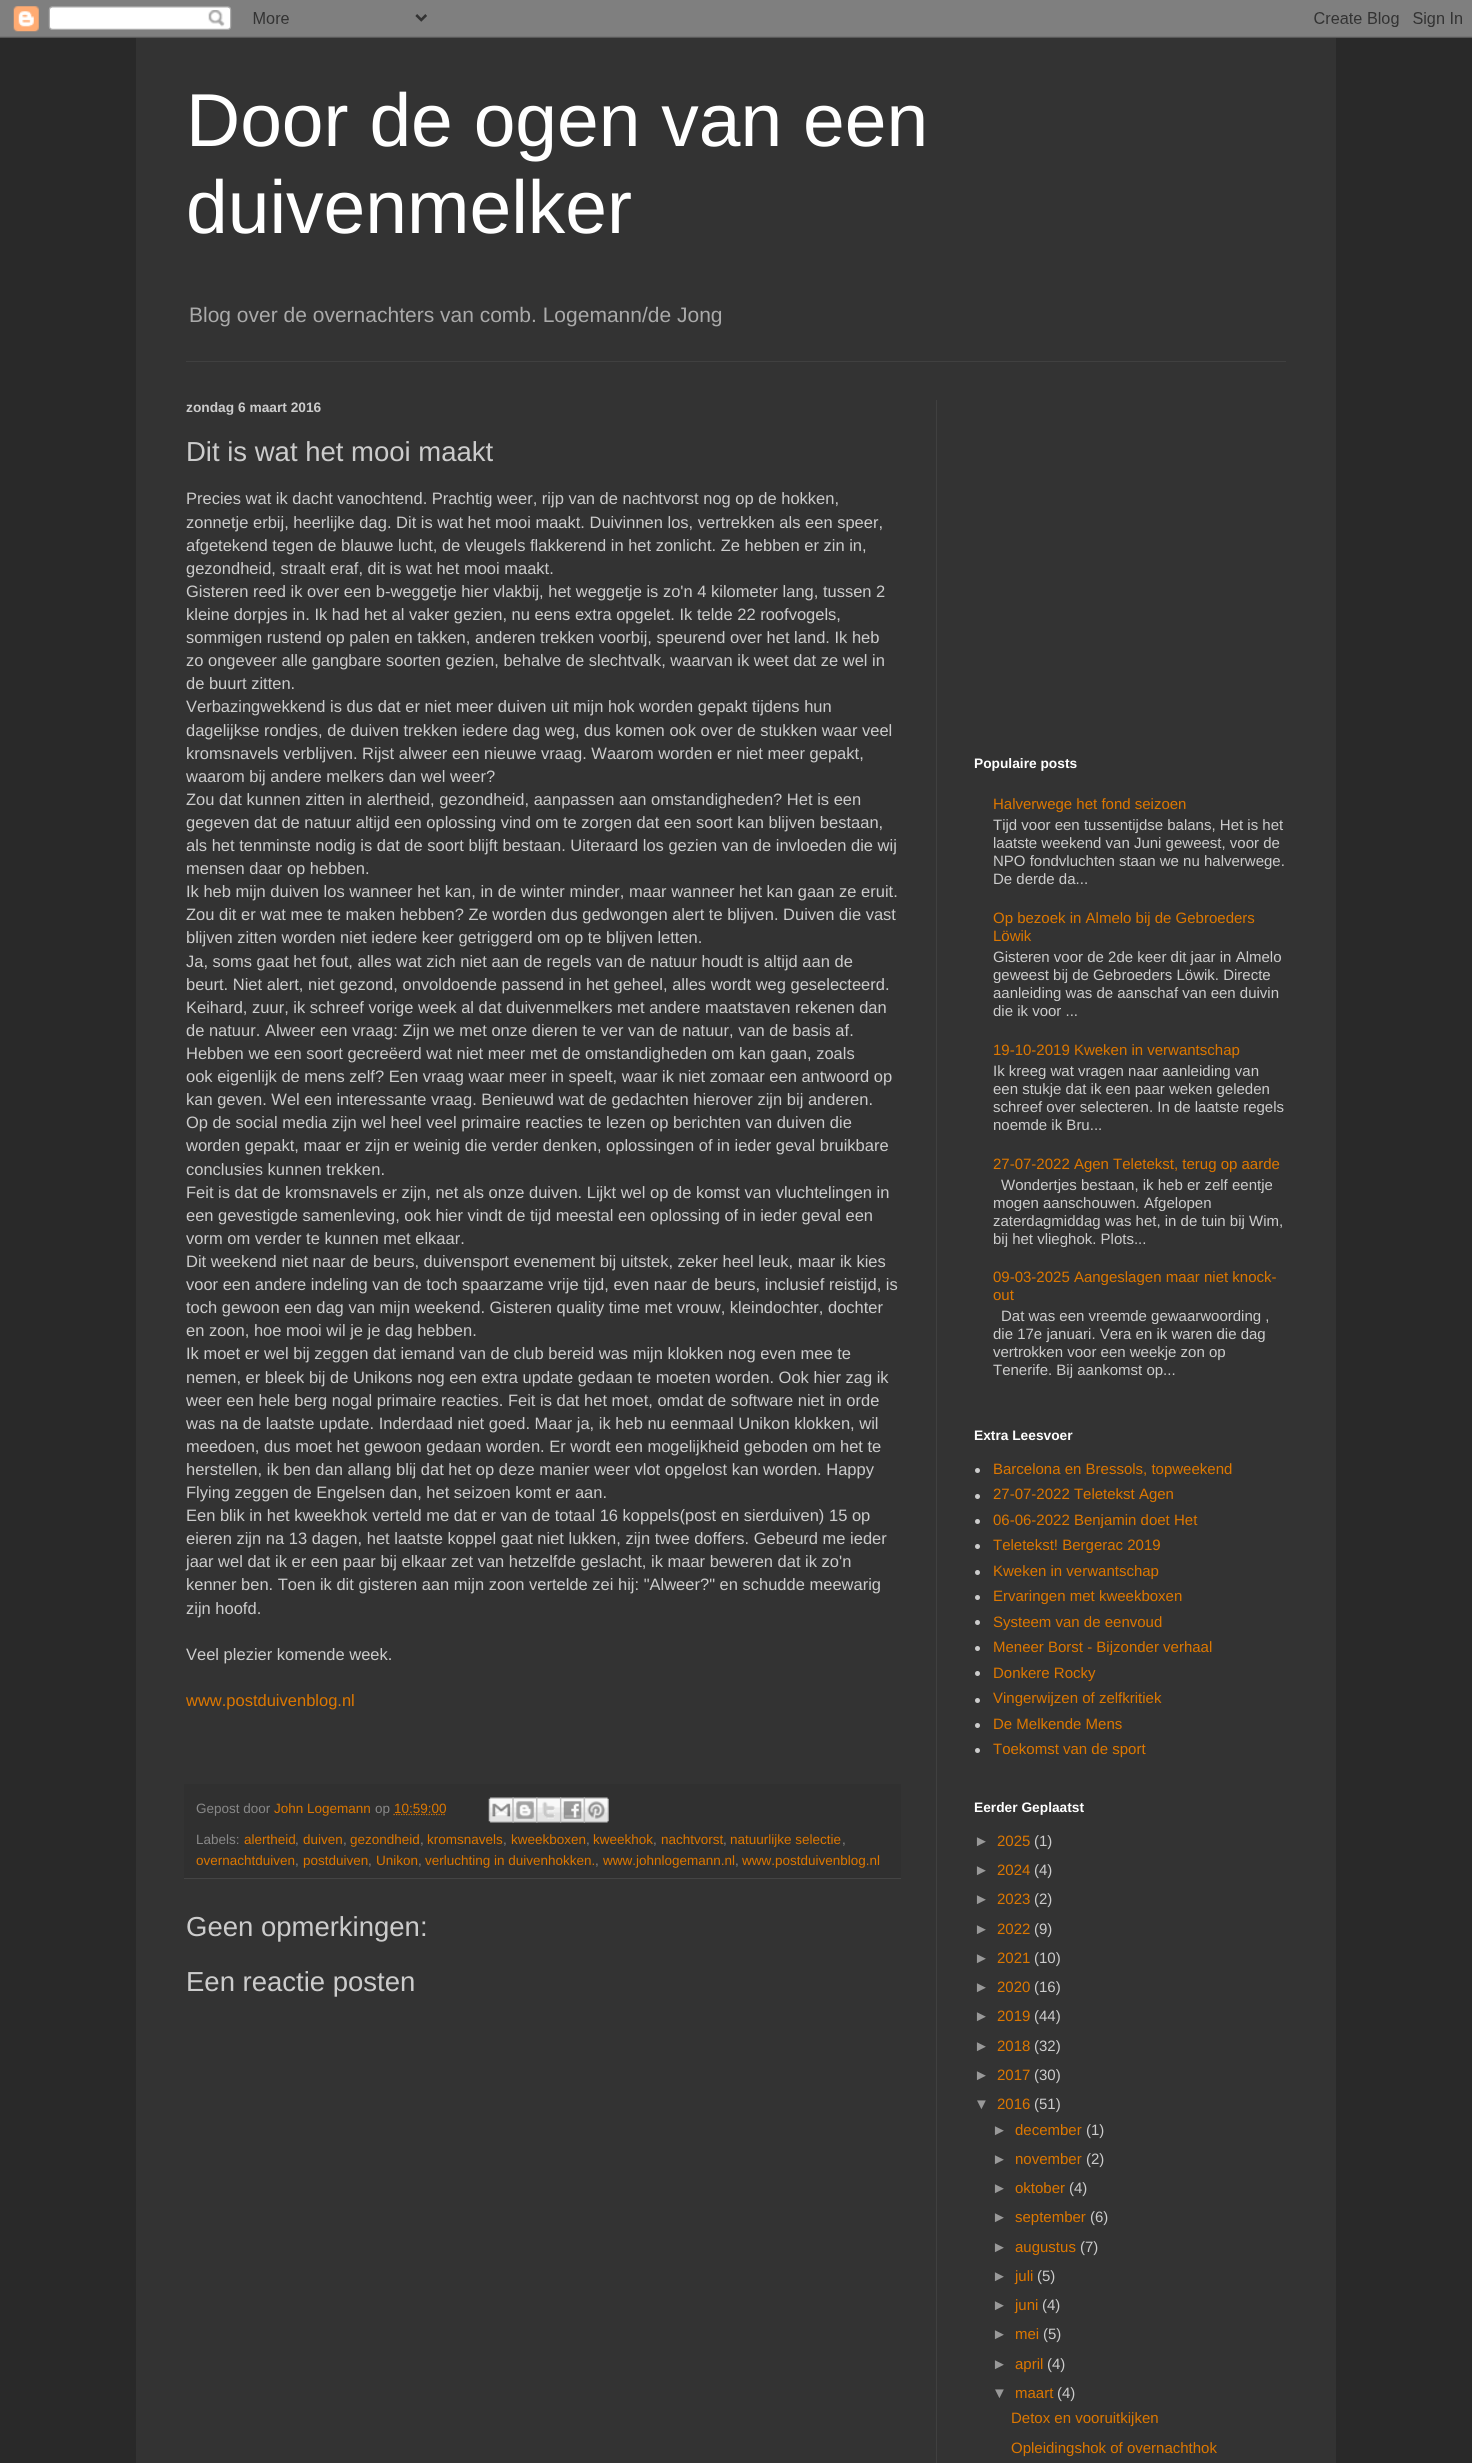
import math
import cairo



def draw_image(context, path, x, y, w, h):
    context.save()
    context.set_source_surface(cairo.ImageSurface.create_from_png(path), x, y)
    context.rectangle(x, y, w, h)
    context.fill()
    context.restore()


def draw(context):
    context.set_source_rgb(41 / 255, 41 / 255, 41 / 255)
    context.paint()
    draw_image(context, "images/1.png", 0, 0, 1472, 38)
    context.set_source_rgb(51 / 255, 51 / 255, 51 / 255)
    context.rectangle(136, 38, 1200, 2425)
    context.fill()
    context.set_source_rgb(64 / 255, 64 / 255, 64 / 255)
    context.rectangle(186, 361, 1100, 1)
    context.fill()
    context.rectangle(936, 400, 1, 2063)
    context.fill()
    context.set_source_rgb(48 / 255, 48 / 255, 48 / 255)
    context.rectangle(184, 1784, 717, 94)
    context.fill()
    context.set_source_rgb(68 / 255, 68 / 255, 68 / 255)
    context.rectangle(184, 1878, 717, 1)
    context.fill()
    context.new_path()
    context.move_to(393.5, 1814.5)
    context.line_to(446, 1814.5)
    context.set_source_rgb(221 / 255, 119 / 255, 0)
    context.set_line_width(1.2)
    context.set_dash([1.25, 1.25])
    context.stroke()
    draw_image(context, "images/2.png", 488, 1797, 26, 26)
    draw_image(context, "images/3.png", 512, 1797, 26, 26)
    draw_image(context, "images/4.png", 536, 1797, 26, 26)
    draw_image(context, "images/5.png", 560, 1797, 25, 26)
    draw_image(context, "images/6.png", 583, 1797, 26, 26)
    context.set_source_rgb(204 / 255, 204 / 255, 204 / 255)
    context.arc(977.5, 1470.5, 2.5, 0, 2 * math.pi)
    context.fill()
    context.arc(977.5, 1496.5, 2.5, 0, 2 * math.pi)
    context.fill()
    context.arc(977.5, 1521.5, 2.5, 0, 2 * math.pi)
    context.fill()
    context.arc(977.5, 1546.5, 2.5, 0, 2 * math.pi)
    context.fill()
    context.arc(977.5, 1572.5, 2.5, 0, 2 * math.pi)
    context.fill()
    context.arc(977.5, 1597.5, 2.5, 0, 2 * math.pi)
    context.fill()
    context.arc(977.5, 1622.5, 2.5, 0, 2 * math.pi)
    context.fill()
    context.arc(977.5, 1648.5, 2.5, 0, 2 * math.pi)
    context.fill()
    context.arc(977.5, 1673.5, 2.5, 0, 2 * math.pi)
    context.fill()
    context.arc(977.5, 1700.5, 2.5, 0, 2 * math.pi)
    context.fill()
    context.arc(977.5, 1725.5, 2.5, 0, 2 * math.pi)
    context.fill()
    context.arc(977.5, 1750.5, 2.5, 0, 2 * math.pi)
    context.fill()
    context.select_font_face("Liberation Sans")
    context.set_font_size(75)
    context.set_source_rgb(1, 1, 1)
    context.move_to(186, 146)
    context.show_text("Door de ogen van een")
    context.move_to(186, 233)
    context.show_text("duivenmelker")
    context.set_font_size(21)
    context.set_source_rgb(170 / 255, 170 / 255, 170 / 255)
    context.move_to(189, 322)
    context.show_text("Blog over de overnachters van comb. Logemann/de Jong")
    context.select_font_face("Liberation Sans", cairo.FontSlant.NORMAL, cairo.FontWeight.BOLD)
    context.set_font_size(13.75)
    context.set_source_rgb(204 / 255, 204 / 255, 204 / 255)
    context.move_to(186, 412)
    context.show_text("zondag 6 maart 2016")
    context.select_font_face("Liberation Sans")
    context.set_font_size(27.5)
    context.move_to(186, 461)
    context.show_text("Dit is wat het mooi maakt")
    context.set_font_size(16.5)
    context.move_to(186, 504)
    context.show_text("Precies wat ik dacht vanochtend. Prachtig weer, rijp van de nachtvorst nog op de hokken,")
    context.move_to(186, 528)
    context.show_text("zonnetje erbij, heerlijke dag. Dit is wat het mooi maakt. Duivinnen los, vertrekken als een speer,")
    context.move_to(186, 551)
    context.show_text("afgetekend tegen de blauwe lucht, de vleugels flakkerend in het zonlicht. Ze hebben er zin in,")
    context.move_to(186, 574)
    context.show_text("gezondheid, straalt eraf, dit is wat het mooi maakt.")
    context.move_to(186, 597)
    context.show_text("Gisteren reed ik over een b-weggetje hier vlakbij, het weggetje is zo'n 4 kilometer lang, tussen 2")
    context.move_to(186, 620)
    context.show_text("kleine dorpjes in. Ik had het al vaker gezien, nu eens extra opgelet. Ik telde 22 roofvogels,")
    context.move_to(186, 643)
    context.show_text("sommigen rustend op palen en takken, anderen trekken voorbij, speurend over het land. Ik heb")
    context.move_to(186, 666)
    context.show_text("zo ongeveer alle gangbare soorten gezien, behalve de slechtvalk, waarvan ik weet dat ze wel in")
    context.move_to(186, 689)
    context.show_text("de buurt zitten.")
    context.move_to(186, 712)
    context.show_text("Verbazingwekkend is dus dat er niet meer duiven uit mijn hok worden gepakt tijdens hun")
    context.move_to(186, 736)
    context.show_text("dagelijkse rondjes, de duiven trekken iedere dag weg, dus komen ook over de stukken waar veel")
    context.move_to(186, 759)
    context.show_text("kromsnavels verblijven. Rijst alweer een nieuwe vraag. Waarom worden er niet meer gepakt,")
    context.move_to(186, 782)
    context.show_text("waarom bij andere melkers dan wel weer?")
    context.move_to(186, 805)
    context.show_text("Zou dat kunnen zitten in alertheid, gezondheid, aanpassen aan omstandigheden? Het is een")
    context.move_to(186, 828)
    context.show_text("gegeven dat de natuur altijd een oplossing vind om te zorgen dat een soort kan blijven bestaan,")
    context.move_to(186, 851)
    context.show_text("als het tenminste nodig is dat de soort blijft bestaan. Uiteraard los gezien van de invloeden die wij")
    context.move_to(186, 874)
    context.show_text("mensen daar op hebben.")
    context.move_to(186, 897)
    context.show_text("Ik heb mijn duiven los wanneer het kan, in de winter minder, maar wanneer het kan gaan ze eruit.")
    context.move_to(186, 920)
    context.show_text("Zou dit er wat mee te maken hebben? Ze worden dus gedwongen alert te blijven. Duiven die vast")
    context.move_to(186, 943)
    context.show_text("blijven zitten worden niet iedere keer getriggerd om op te blijven letten.")
    context.move_to(186, 967)
    context.show_text("Ja, soms gaat het fout, alles wat zich niet aan de regels van de natuur houdt is altijd aan de")
    context.move_to(186, 990)
    context.show_text("beurt. Niet alert, niet gezond, onvoldoende passend in het geheel, alles wordt weg geselecteerd.")
    context.move_to(186, 1013)
    context.show_text("Keihard, zuur, ik schreef vorige week al dat duivenmelkers met andere maatstaven rekenen dan")
    context.move_to(186, 1036)
    context.show_text("de natuur. Alweer een vraag: Zijn we met onze dieren te ver van de natuur, van de basis af.")
    context.move_to(186, 1059)
    context.show_text("Hebben we een soort gecreëerd wat niet meer met de omstandigheden om kan gaan, zoals")
    context.move_to(186, 1082)
    context.show_text("ook eigenlijk de mens zelf? Een vraag waar meer in speelt, waar ik niet zomaar een antwoord op")
    context.move_to(186, 1105)
    context.show_text("kan geven. Wel een interessante vraag. Benieuwd wat de gedachten hierover zijn bij anderen.")
    context.move_to(186, 1128)
    context.show_text("Op de social media zijn wel heel veel primaire reacties te lezen op berichten van duiven die")
    context.move_to(186, 1151)
    context.show_text("worden gepakt, maar er zijn er weinig die verder denken, oplossingen of in ieder geval bruikbare")
    context.move_to(186, 1175)
    context.show_text("conclusies kunnen trekken.")
    context.move_to(186, 1198)
    context.show_text("Feit is dat de kromsnavels er zijn, net als onze duiven. Lijkt wel op de komst van vluchtelingen in")
    context.move_to(186, 1221)
    context.show_text("een gevestigde samenleving, ook hier vindt de tijd meestal een oplossing of in ieder geval een")
    context.move_to(186, 1244)
    context.show_text("vorm om verder te kunnen met elkaar.")
    context.move_to(186, 1267)
    context.show_text("Dit weekend niet naar de beurs, duivensport evenement bij uitstek, zeker heel leuk, maar ik kies")
    context.move_to(186, 1290)
    context.show_text("voor een andere indeling van de toch spaarzame vrije tijd, even naar de beurs, inclusief reistijd, is")
    context.move_to(186, 1313)
    context.show_text("toch gewoon een dag van mijn weekend. Gisteren quality time met vrouw, kleindochter, dochter")
    context.move_to(186, 1336)
    context.show_text("en zoon, hoe mooi wil je je dag hebben.")
    context.move_to(186, 1359)
    context.show_text("Ik moet er wel bij zeggen dat iemand van de club bereid was mijn klokken nog even mee te")
    context.move_to(186, 1383)
    context.show_text("nemen, er bleek bij de Unikons nog een extra update gedaan te moeten worden. Ook hier zag ik")
    context.move_to(186, 1406)
    context.show_text("weer een hele berg nogal primaire reacties. Feit is dat het moet, omdat de software niet in orde")
    context.move_to(186, 1429)
    context.show_text("was na de laatste update. Inderdaad niet goed. Maar ja, ik heb nu eenmaal Unikon klokken, wil")
    context.move_to(186, 1452)
    context.show_text("meedoen, dus moet het gewoon gedaan worden. Er wordt een mogelijkheid geboden om het te")
    context.move_to(186, 1475)
    context.show_text("herstellen, ik ben dan allang blij dat het op deze manier weer vlot opgelost kan worden. Happy")
    context.move_to(186, 1498)
    context.show_text("Flying zeggen de Engelsen dan, het seizoen komt er aan.")
    context.move_to(186, 1521)
    context.show_text("Een blik in het kweekhok verteld me dat er van de totaal 16 koppels(post en sierduiven) 15 op")
    context.move_to(186, 1544)
    context.show_text("eieren zijn na 13 dagen, het laatste koppel gaat niet lukken, zijn twee doffers. Gebeurd me ieder")
    context.move_to(186, 1567)
    context.show_text("jaar wel dat ik er een paar bij elkaar zet van hetzelfde geslacht, ik maar beweren dat ik zo'n")
    context.move_to(186, 1590)
    context.show_text("kenner ben. Toen ik dit gisteren aan mijn zoon vertelde zei hij: \"Alweer?\" en schudde meewarig")
    context.move_to(186, 1614)
    context.show_text("zijn hoofd.")
    context.move_to(186, 1660)
    context.show_text("Veel plezier komende week.")
    context.set_source_rgb(221 / 255, 119 / 255, 0)
    context.move_to(186, 1706)
    context.show_text("www.postduivenblog.nl")
    context.set_font_size(13.5)
    context.set_source_rgb(136 / 255, 136 / 255, 136 / 255)
    context.move_to(196, 1813)
    context.show_text("Gepost door")
    context.set_source_rgb(221 / 255, 119 / 255, 0)
    context.move_to(274, 1813)
    context.show_text("John Logemann")
    context.set_source_rgb(136 / 255, 136 / 255, 136 / 255)
    context.move_to(375, 1813)
    context.show_text("op")
    context.set_source_rgb(221 / 255, 119 / 255, 0)
    context.move_to(394, 1813)
    context.show_text("10:59:00")
    context.set_source_rgb(136 / 255, 136 / 255, 136 / 255)
    context.move_to(196, 1844)
    context.show_text("Labels:")
    context.set_source_rgb(221 / 255, 119 / 255, 0)
    context.move_to(244, 1844)
    context.show_text("alertheid")
    context.set_source_rgb(136 / 255, 136 / 255, 136 / 255)
    context.move_to(295, 1844)
    context.show_text(",")
    context.set_source_rgb(221 / 255, 119 / 255, 0)
    context.move_to(303, 1844)
    context.show_text("duiven")
    context.set_source_rgb(136 / 255, 136 / 255, 136 / 255)
    context.move_to(343, 1844)
    context.show_text(",")
    context.set_source_rgb(221 / 255, 119 / 255, 0)
    context.move_to(350, 1844)
    context.show_text("gezondheid")
    context.set_source_rgb(136 / 255, 136 / 255, 136 / 255)
    context.move_to(420, 1844)
    context.show_text(",")
    context.set_source_rgb(221 / 255, 119 / 255, 0)
    context.move_to(427, 1844)
    context.show_text("kromsnavels")
    context.set_source_rgb(136 / 255, 136 / 255, 136 / 255)
    context.move_to(503, 1844)
    context.show_text(",")
    context.set_source_rgb(221 / 255, 119 / 255, 0)
    context.move_to(511, 1844)
    context.show_text("kweekboxen")
    context.set_source_rgb(136 / 255, 136 / 255, 136 / 255)
    context.move_to(586, 1844)
    context.show_text(",")
    context.set_source_rgb(221 / 255, 119 / 255, 0)
    context.move_to(593, 1844)
    context.show_text("kweekhok")
    context.set_source_rgb(136 / 255, 136 / 255, 136 / 255)
    context.move_to(653, 1844)
    context.show_text(",")
    context.set_source_rgb(221 / 255, 119 / 255, 0)
    context.move_to(661, 1844)
    context.show_text("nachtvorst")
    context.set_source_rgb(136 / 255, 136 / 255, 136 / 255)
    context.move_to(723, 1844)
    context.show_text(",")
    context.set_source_rgb(221 / 255, 119 / 255, 0)
    context.move_to(730, 1844)
    context.show_text("natuurlijke selectie")
    context.set_source_rgb(136 / 255, 136 / 255, 136 / 255)
    context.move_to(842, 1844)
    context.show_text(",")
    context.set_source_rgb(221 / 255, 119 / 255, 0)
    context.move_to(196, 1865)
    context.show_text("overnachtduiven")
    context.set_source_rgb(136 / 255, 136 / 255, 136 / 255)
    context.move_to(295, 1865)
    context.show_text(",")
    context.set_source_rgb(221 / 255, 119 / 255, 0)
    context.move_to(303, 1865)
    context.show_text("postduiven")
    context.set_source_rgb(136 / 255, 136 / 255, 136 / 255)
    context.move_to(368, 1865)
    context.show_text(",")
    context.set_source_rgb(221 / 255, 119 / 255, 0)
    context.move_to(376, 1865)
    context.show_text("Unikon")
    context.set_source_rgb(136 / 255, 136 / 255, 136 / 255)
    context.move_to(418, 1865)
    context.show_text(",")
    context.set_source_rgb(221 / 255, 119 / 255, 0)
    context.move_to(425, 1865)
    context.show_text("verluchting in duivenhokken.")
    context.set_source_rgb(136 / 255, 136 / 255, 136 / 255)
    context.move_to(595, 1865)
    context.show_text(",")
    context.set_source_rgb(221 / 255, 119 / 255, 0)
    context.move_to(603, 1865)
    context.show_text("www.johnlogemann.nl")
    context.set_source_rgb(136 / 255, 136 / 255, 136 / 255)
    context.move_to(735, 1865)
    context.show_text(",")
    context.set_source_rgb(221 / 255, 119 / 255, 0)
    context.move_to(742, 1865)
    context.show_text("www.postduivenblog.nl")
    context.set_font_size(27.5)
    context.set_source_rgb(204 / 255, 204 / 255, 204 / 255)
    context.move_to(186, 1936)
    context.show_text("Geen opmerkingen:")
    context.move_to(186, 1991)
    context.show_text("Een reactie posten")
    context.select_font_face("Liberation Sans", cairo.FontSlant.NORMAL, cairo.FontWeight.BOLD)
    context.set_font_size(13.75)
    context.set_source_rgb(1, 1, 1)
    context.move_to(974, 768)
    context.show_text("Populaire posts")
    context.select_font_face("Liberation Sans")
    context.set_font_size(15)
    context.set_source_rgb(221 / 255, 119 / 255, 0)
    context.move_to(993, 809)
    context.show_text("Halverwege het fond seizoen")
    context.set_source_rgb(204 / 255, 204 / 255, 204 / 255)
    context.move_to(993, 830)
    context.show_text("Tijd voor een tussentijdse balans, Het is het")
    context.move_to(993, 848)
    context.show_text("laatste weekend van Juni geweest, voor de")
    context.move_to(993, 866)
    context.show_text("NPO fondvluchten staan we nu halverwege.")
    context.move_to(993, 884)
    context.show_text("De derde da...")
    context.set_source_rgb(221 / 255, 119 / 255, 0)
    context.move_to(993, 923)
    context.show_text("Op bezoek in Almelo bij de Gebroeders")
    context.move_to(993, 941)
    context.show_text("Löwik")
    context.set_source_rgb(204 / 255, 204 / 255, 204 / 255)
    context.move_to(993, 962)
    context.show_text("Gisteren voor de 2de keer dit jaar in Almelo")
    context.move_to(993, 980)
    context.show_text("geweest bij de Gebroeders Löwik. Directe")
    context.move_to(993, 998)
    context.show_text("aanleiding was de aanschaf van een duivin")
    context.move_to(993, 1016)
    context.show_text("die ik voor ...")
    context.set_source_rgb(221 / 255, 119 / 255, 0)
    context.move_to(993, 1055)
    context.show_text("19-10-2019 Kweken in verwantschap")
    context.set_source_rgb(204 / 255, 204 / 255, 204 / 255)
    context.move_to(993, 1076)
    context.show_text("Ik kreeg wat vragen naar aanleiding van")
    context.move_to(993, 1094)
    context.show_text("een stukje dat ik een paar weken geleden")
    context.move_to(993, 1112)
    context.show_text("schreef over selecteren. In de laatste regels")
    context.move_to(993, 1130)
    context.show_text("noemde ik Bru...")
    context.set_source_rgb(221 / 255, 119 / 255, 0)
    context.move_to(993, 1169)
    context.show_text("27-07-2022 Agen Teletekst, terug op aarde")
    context.set_source_rgb(204 / 255, 204 / 255, 204 / 255)
    context.move_to(1001, 1190)
    context.show_text("Wondertjes bestaan, ik heb er zelf eentje")
    context.move_to(993, 1208)
    context.show_text("mogen aanschouwen. Afgelopen")
    context.move_to(993, 1226)
    context.show_text("zaterdagmiddag was het, in de tuin bij Wim,")
    context.move_to(993, 1244)
    context.show_text("bij het vlieghok. Plots...")
    context.set_source_rgb(221 / 255, 119 / 255, 0)
    context.move_to(993, 1282)
    context.show_text("09-03-2025 Aangeslagen maar niet knock-")
    context.move_to(993, 1300)
    context.show_text("out")
    context.set_source_rgb(204 / 255, 204 / 255, 204 / 255)
    context.move_to(1001, 1321)
    context.show_text("Dat was een vreemde gewaarwoording ,")
    context.move_to(993, 1339)
    context.show_text("die 17e januari. Vera en ik waren die dag")
    context.move_to(993, 1357)
    context.show_text("vertrokken voor een weekje zon op")
    context.move_to(993, 1375)
    context.show_text("Tenerife. Bij aankomst op...")
    context.select_font_face("Liberation Sans", cairo.FontSlant.NORMAL, cairo.FontWeight.BOLD)
    context.set_font_size(13.75)
    context.set_source_rgb(1, 1, 1)
    context.move_to(974, 1440)
    context.show_text("Extra Leesvoer")
    context.select_font_face("Liberation Sans")
    context.set_font_size(15)
    context.set_source_rgb(221 / 255, 119 / 255, 0)
    context.move_to(993, 1474)
    context.show_text("Barcelona en Bressols, topweekend")
    context.move_to(993, 1499)
    context.show_text("27-07-2022 Teletekst Agen")
    context.move_to(993, 1525)
    context.show_text("06-06-2022 Benjamin doet Het")
    context.move_to(993, 1550)
    context.show_text("Teletekst! Bergerac 2019")
    context.move_to(993, 1576)
    context.show_text("Kweken in verwantschap")
    context.move_to(993, 1601)
    context.show_text("Ervaringen met kweekboxen")
    context.move_to(993, 1627)
    context.show_text("Systeem van de eenvoud")
    context.move_to(993, 1652)
    context.show_text("Meneer Borst - Bijzonder verhaal")
    context.move_to(993, 1678)
    context.show_text("Donkere Rocky")
    context.move_to(993, 1703)
    context.show_text("Vingerwijzen of zelfkritiek")
    context.move_to(993, 1729)
    context.show_text("De Melkende Mens")
    context.move_to(993, 1754)
    context.show_text("Toekomst van de sport")
    context.select_font_face("Liberation Sans", cairo.FontSlant.NORMAL, cairo.FontWeight.BOLD)
    context.set_font_size(13.75)
    context.set_source_rgb(1, 1, 1)
    context.move_to(974, 1812)
    context.show_text("Eerder Geplaatst")
    context.select_font_face("Liberation Sans")
    context.set_font_size(15)
    context.set_source_rgb(153 / 255, 153 / 255, 153 / 255)
    context.move_to(974, 1846)
    context.show_text("►")
    context.set_source_rgb(221 / 255, 119 / 255, 0)
    context.move_to(997, 1846)
    context.show_text("2025")
    context.set_source_rgb(204 / 255, 204 / 255, 204 / 255)
    context.move_to(1034, 1846)
    context.show_text("(1)")
    context.set_source_rgb(153 / 255, 153 / 255, 153 / 255)
    context.move_to(974, 1875)
    context.show_text("►")
    context.set_source_rgb(221 / 255, 119 / 255, 0)
    context.move_to(997, 1875)
    context.show_text("2024")
    context.set_source_rgb(204 / 255, 204 / 255, 204 / 255)
    context.move_to(1034, 1875)
    context.show_text("(4)")
    context.set_source_rgb(153 / 255, 153 / 255, 153 / 255)
    context.move_to(974, 1904)
    context.show_text("►")
    context.set_source_rgb(221 / 255, 119 / 255, 0)
    context.move_to(997, 1904)
    context.show_text("2023")
    context.set_source_rgb(204 / 255, 204 / 255, 204 / 255)
    context.move_to(1034, 1904)
    context.show_text("(2)")
    context.set_source_rgb(153 / 255, 153 / 255, 153 / 255)
    context.move_to(974, 1934)
    context.show_text("►")
    context.set_source_rgb(221 / 255, 119 / 255, 0)
    context.move_to(997, 1934)
    context.show_text("2022")
    context.set_source_rgb(204 / 255, 204 / 255, 204 / 255)
    context.move_to(1034, 1934)
    context.show_text("(9)")
    context.set_source_rgb(153 / 255, 153 / 255, 153 / 255)
    context.move_to(974, 1963)
    context.show_text("►")
    context.set_source_rgb(221 / 255, 119 / 255, 0)
    context.move_to(997, 1963)
    context.show_text("2021")
    context.set_source_rgb(204 / 255, 204 / 255, 204 / 255)
    context.move_to(1034, 1963)
    context.show_text("(10)")
    context.set_source_rgb(153 / 255, 153 / 255, 153 / 255)
    context.move_to(974, 1992)
    context.show_text("►")
    context.set_source_rgb(221 / 255, 119 / 255, 0)
    context.move_to(997, 1992)
    context.show_text("2020")
    context.set_source_rgb(204 / 255, 204 / 255, 204 / 255)
    context.move_to(1034, 1992)
    context.show_text("(16)")
    context.set_source_rgb(153 / 255, 153 / 255, 153 / 255)
    context.move_to(974, 2021)
    context.show_text("►")
    context.set_source_rgb(221 / 255, 119 / 255, 0)
    context.move_to(997, 2021)
    context.show_text("2019")
    context.set_source_rgb(204 / 255, 204 / 255, 204 / 255)
    context.move_to(1034, 2021)
    context.show_text("(44)")
    context.set_source_rgb(153 / 255, 153 / 255, 153 / 255)
    context.move_to(974, 2051)
    context.show_text("►")
    context.set_source_rgb(221 / 255, 119 / 255, 0)
    context.move_to(997, 2051)
    context.show_text("2018")
    context.set_source_rgb(204 / 255, 204 / 255, 204 / 255)
    context.move_to(1034, 2051)
    context.show_text("(32)")
    context.set_source_rgb(153 / 255, 153 / 255, 153 / 255)
    context.move_to(974, 2080)
    context.show_text("►")
    context.set_source_rgb(221 / 255, 119 / 255, 0)
    context.move_to(997, 2080)
    context.show_text("2017")
    context.set_source_rgb(204 / 255, 204 / 255, 204 / 255)
    context.move_to(1034, 2080)
    context.show_text("(30)")
    context.set_source_rgb(153 / 255, 153 / 255, 153 / 255)
    context.move_to(974, 2109)
    context.show_text("▼")
    context.set_source_rgb(221 / 255, 119 / 255, 0)
    context.move_to(997, 2109)
    context.show_text("2016")
    context.set_source_rgb(204 / 255, 204 / 255, 204 / 255)
    context.move_to(1034, 2109)
    context.show_text("(51)")
    context.set_source_rgb(153 / 255, 153 / 255, 153 / 255)
    context.move_to(992, 2135)
    context.show_text("►")
    context.set_source_rgb(221 / 255, 119 / 255, 0)
    context.move_to(1015, 2135)
    context.show_text("december")
    context.set_source_rgb(204 / 255, 204 / 255, 204 / 255)
    context.move_to(1086, 2135)
    context.show_text("(1)")
    context.set_source_rgb(153 / 255, 153 / 255, 153 / 255)
    context.move_to(992, 2164)
    context.show_text("►")
    context.set_source_rgb(221 / 255, 119 / 255, 0)
    context.move_to(1015, 2164)
    context.show_text("november")
    context.set_source_rgb(204 / 255, 204 / 255, 204 / 255)
    context.move_to(1086, 2164)
    context.show_text("(2)")
    context.set_source_rgb(153 / 255, 153 / 255, 153 / 255)
    context.move_to(992, 2193)
    context.show_text("►")
    context.set_source_rgb(221 / 255, 119 / 255, 0)
    context.move_to(1015, 2193)
    context.show_text("oktober")
    context.set_source_rgb(204 / 255, 204 / 255, 204 / 255)
    context.move_to(1069, 2193)
    context.show_text("(4)")
    context.set_source_rgb(153 / 255, 153 / 255, 153 / 255)
    context.move_to(992, 2222)
    context.show_text("►")
    context.set_source_rgb(221 / 255, 119 / 255, 0)
    context.move_to(1015, 2222)
    context.show_text("september")
    context.set_source_rgb(204 / 255, 204 / 255, 204 / 255)
    context.move_to(1090, 2222)
    context.show_text("(6)")
    context.set_source_rgb(153 / 255, 153 / 255, 153 / 255)
    context.move_to(992, 2252)
    context.show_text("►")
    context.set_source_rgb(221 / 255, 119 / 255, 0)
    context.move_to(1015, 2252)
    context.show_text("augustus")
    context.set_source_rgb(204 / 255, 204 / 255, 204 / 255)
    context.move_to(1080, 2252)
    context.show_text("(7)")
    context.set_source_rgb(153 / 255, 153 / 255, 153 / 255)
    context.move_to(992, 2281)
    context.show_text("►")
    context.set_source_rgb(221 / 255, 119 / 255, 0)
    context.move_to(1015, 2281)
    context.show_text("juli")
    context.set_source_rgb(204 / 255, 204 / 255, 204 / 255)
    context.move_to(1037, 2281)
    context.show_text("(5)")
    context.set_source_rgb(153 / 255, 153 / 255, 153 / 255)
    context.move_to(992, 2310)
    context.show_text("►")
    context.set_source_rgb(221 / 255, 119 / 255, 0)
    context.move_to(1015, 2310)
    context.show_text("juni")
    context.set_source_rgb(204 / 255, 204 / 255, 204 / 255)
    context.move_to(1042, 2310)
    context.show_text("(4)")
    context.set_source_rgb(153 / 255, 153 / 255, 153 / 255)
    context.move_to(992, 2339)
    context.show_text("►")
    context.set_source_rgb(221 / 255, 119 / 255, 0)
    context.move_to(1015, 2339)
    context.show_text("mei")
    context.set_source_rgb(204 / 255, 204 / 255, 204 / 255)
    context.move_to(1043, 2339)
    context.show_text("(5)")
    context.set_source_rgb(153 / 255, 153 / 255, 153 / 255)
    context.move_to(992, 2369)
    context.show_text("►")
    context.set_source_rgb(221 / 255, 119 / 255, 0)
    context.move_to(1015, 2369)
    context.show_text("april")
    context.set_source_rgb(204 / 255, 204 / 255, 204 / 255)
    context.move_to(1047, 2369)
    context.show_text("(4)")
    context.set_source_rgb(153 / 255, 153 / 255, 153 / 255)
    context.move_to(992, 2398)
    context.show_text("▼")
    context.set_source_rgb(221 / 255, 119 / 255, 0)
    context.move_to(1015, 2398)
    context.show_text("maart")
    context.set_source_rgb(204 / 255, 204 / 255, 204 / 255)
    context.move_to(1057, 2398)
    context.show_text("(4)")
    context.set_source_rgb(221 / 255, 119 / 255, 0)
    context.move_to(1011, 2423)
    context.show_text("Detox en vooruitkijken")
    context.move_to(1011, 2453)
    context.show_text("Opleidingshok of overnachthok")


surface = cairo.ImageSurface(cairo.Format.RGB24, 1472, 2463)
context = cairo.Context(surface)
options = cairo.FontOptions()
options.set_hint_metrics(cairo.HintMetrics.OFF)
options.set_hint_style(cairo.HintStyle.NONE)
context.set_font_options(options)
context.set_miter_limit(4)
draw(context)
surface.write_to_png("out.png")
